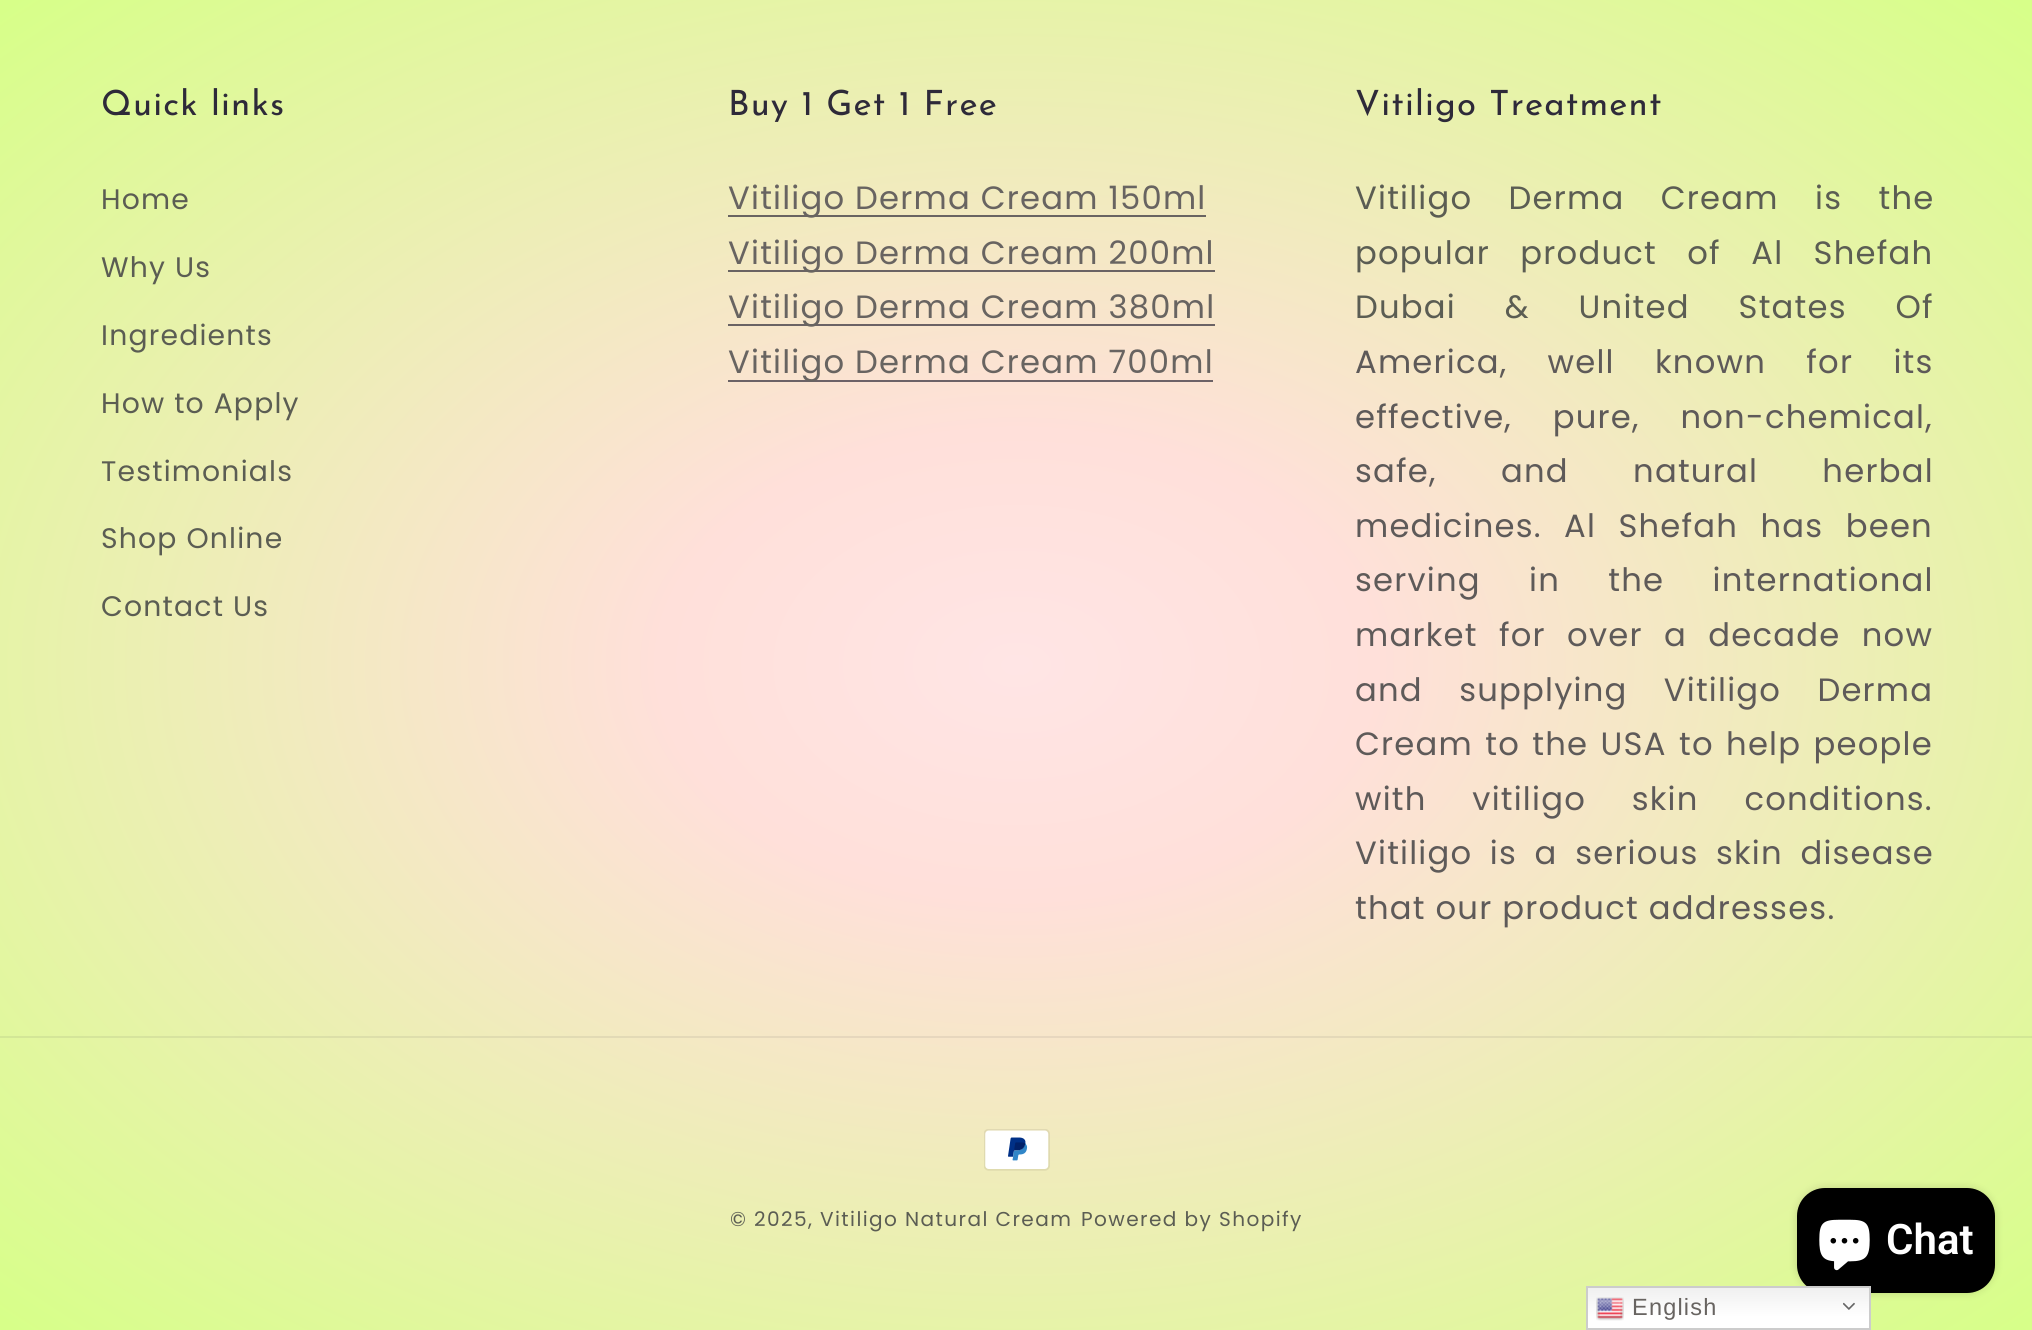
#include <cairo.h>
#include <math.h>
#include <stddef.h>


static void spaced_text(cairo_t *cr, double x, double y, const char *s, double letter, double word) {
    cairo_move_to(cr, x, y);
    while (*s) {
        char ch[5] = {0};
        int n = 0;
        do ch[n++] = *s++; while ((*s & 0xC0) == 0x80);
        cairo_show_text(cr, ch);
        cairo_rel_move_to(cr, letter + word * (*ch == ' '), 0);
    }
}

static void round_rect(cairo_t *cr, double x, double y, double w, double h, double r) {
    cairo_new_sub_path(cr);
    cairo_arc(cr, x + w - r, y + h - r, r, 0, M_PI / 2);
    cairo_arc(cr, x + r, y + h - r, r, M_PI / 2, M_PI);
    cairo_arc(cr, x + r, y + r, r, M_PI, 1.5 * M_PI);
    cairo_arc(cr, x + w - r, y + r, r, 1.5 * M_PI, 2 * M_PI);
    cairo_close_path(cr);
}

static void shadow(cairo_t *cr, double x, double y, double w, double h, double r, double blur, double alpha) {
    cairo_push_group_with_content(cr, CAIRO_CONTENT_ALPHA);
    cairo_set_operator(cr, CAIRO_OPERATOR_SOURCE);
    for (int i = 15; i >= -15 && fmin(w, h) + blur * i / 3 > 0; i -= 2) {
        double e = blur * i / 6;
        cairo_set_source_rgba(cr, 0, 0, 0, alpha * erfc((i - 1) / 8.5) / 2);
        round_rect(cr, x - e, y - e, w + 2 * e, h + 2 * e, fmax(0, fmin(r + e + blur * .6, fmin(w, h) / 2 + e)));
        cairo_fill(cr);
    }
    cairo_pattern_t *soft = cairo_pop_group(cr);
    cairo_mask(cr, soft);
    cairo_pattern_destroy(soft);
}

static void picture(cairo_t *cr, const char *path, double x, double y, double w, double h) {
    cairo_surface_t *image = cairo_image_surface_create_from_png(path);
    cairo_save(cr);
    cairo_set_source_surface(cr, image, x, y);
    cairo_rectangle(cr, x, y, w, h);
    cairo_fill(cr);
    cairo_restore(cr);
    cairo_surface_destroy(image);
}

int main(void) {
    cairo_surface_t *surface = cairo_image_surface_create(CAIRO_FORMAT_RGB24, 2032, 1330);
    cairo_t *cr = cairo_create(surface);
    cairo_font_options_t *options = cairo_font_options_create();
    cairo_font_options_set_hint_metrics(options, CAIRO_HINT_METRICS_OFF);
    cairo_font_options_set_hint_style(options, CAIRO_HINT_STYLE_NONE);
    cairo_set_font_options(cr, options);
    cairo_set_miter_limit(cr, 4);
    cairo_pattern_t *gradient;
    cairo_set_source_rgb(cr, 1, 1, 1);
    cairo_paint(cr);
    gradient = cairo_pattern_create_radial(0, 0, 0, 0, 0, 1);
    cairo_pattern_set_matrix(gradient, &(cairo_matrix_t){1.0 / 1438, 0, 0, 1.0 / 940, -1.0 * 1017 / 1438, -1.0 * 665 / 940});
    cairo_pattern_add_color_stop_rgba(gradient, 0, 1, 0.898, 0.898, 1);
    cairo_pattern_add_color_stop_rgba(gradient, 0.25, 1, 0.878, 0.855, 1);
    cairo_pattern_add_color_stop_rgba(gradient, 1, 0.843, 1, 0.537, 1);
    cairo_set_source(cr, gradient);
    cairo_pattern_destroy(gradient);
    cairo_rectangle(cr, 0, 0, 2032, 1330);
    cairo_fill(cr);
    gradient = cairo_pattern_create_radial(0, 0, 0, 0, 0, 1);
    cairo_pattern_set_matrix(gradient, &(cairo_matrix_t){1.0 / 1438, 0, 0, 1.0 / 940, -1.0 * 1017 / 1438, -1.0 * 665 / 940});
    cairo_pattern_add_color_stop_rgba(gradient, 0, 0.427, 0.384, 0.427, 1);
    cairo_pattern_add_color_stop_rgba(gradient, 0.25, 0.427, 0.38, 0.412, 1);
    cairo_pattern_add_color_stop_rgba(gradient, 1, 0.38, 0.416, 0.318, 1);
    cairo_set_source(cr, gradient);
    cairo_pattern_destroy(gradient);
    cairo_rectangle(cr, 728, 380, 485, 2);
    cairo_fill(cr);
    cairo_rectangle(cr, 728, 324, 487, 2);
    cairo_fill(cr);
    cairo_rectangle(cr, 728, 270, 487, 2);
    cairo_fill(cr);
    cairo_rectangle(cr, 728, 215, 478, 2);
    cairo_fill(cr);
    gradient = cairo_pattern_create_radial(0, 0, 0, 0, 0, 1);
    cairo_pattern_set_matrix(gradient, &(cairo_matrix_t){1.0 / 1438, 0, 0, 1.0 / 940, -1.0 * 1017 / 1438, -1.0 * 665 / 940});
    cairo_pattern_add_color_stop_rgba(gradient, 0, 0.933, 0.839, 0.843, 1);
    cairo_pattern_add_color_stop_rgba(gradient, 0.25, 0.933, 0.82, 0.804, 1);
    cairo_pattern_add_color_stop_rgba(gradient, 1, 0.788, 0.933, 0.514, 1);
    cairo_set_source(cr, gradient);
    cairo_pattern_destroy(gradient);
    cairo_rectangle(cr, 0, 1036, 2032, 2);
    cairo_fill(cr);
    cairo_select_font_face(cr, "Josefin Sans", CAIRO_FONT_SLANT_NORMAL, CAIRO_FONT_WEIGHT_NORMAL);
    cairo_set_font_size(cr, 34.75);
    cairo_set_source_rgb(cr, 0.18, 0.165, 0.224);
    spaced_text(cr, 101, 115, "Quick links", 1.2, 0);
    cairo_select_font_face(cr, "Poppins", CAIRO_FONT_SLANT_NORMAL, CAIRO_FONT_WEIGHT_NORMAL);
    cairo_set_font_size(cr, 28.25);
    cairo_set_source_rgb(cr, 0.357, 0.365, 0.325);
    spaced_text(cr, 101, 209, "Home", 1.2, 0);
    spaced_text(cr, 101, 277, "Why Us", 1.2, 0);
    spaced_text(cr, 101, 345, "Ingredients", 1.2, 0);
    spaced_text(cr, 101, 413, "How to Apply", 1.2, 0);
    spaced_text(cr, 101, 481, "Testimonials", 1.2, 0);
    spaced_text(cr, 101, 548, "Shop Online", 1.2, 0);
    spaced_text(cr, 101, 616, "Contact Us", 1.2, 0);
    cairo_select_font_face(cr, "Josefin Sans", CAIRO_FONT_SLANT_NORMAL, CAIRO_FONT_WEIGHT_NORMAL);
    cairo_set_font_size(cr, 34.75);
    cairo_set_source_rgb(cr, 0.18, 0.165, 0.224);
    spaced_text(cr, 728, 115, "Buy 1 Get 1 Free", 1.2, 0);
    cairo_select_font_face(cr, "Poppins", CAIRO_FONT_SLANT_NORMAL, CAIRO_FONT_WEIGHT_NORMAL);
    cairo_set_font_size(cr, 32.25);
    cairo_set_source_rgb(cr, 0.408, 0.392, 0.38);
    spaced_text(cr, 728, 209, "Vitiligo Derma Cream 150ml", 1.2, 0);
    spaced_text(cr, 728, 264, "Vitiligo Derma Cream 200ml", 1.2, 0);
    spaced_text(cr, 728, 318, "Vitiligo Derma Cream 380ml", 1.2, 0);
    spaced_text(cr, 728, 373, "Vitiligo Derma Cream 700ml", 1.2, 0);
    cairo_select_font_face(cr, "Josefin Sans", CAIRO_FONT_SLANT_NORMAL, CAIRO_FONT_WEIGHT_NORMAL);
    cairo_set_font_size(cr, 34.75);
    cairo_set_source_rgb(cr, 0.18, 0.165, 0.224);
    spaced_text(cr, 1355, 115, "Vitiligo Treatment", 1.2, 0);
    cairo_select_font_face(cr, "Poppins", CAIRO_FONT_SLANT_NORMAL, CAIRO_FONT_WEIGHT_NORMAL);
    cairo_set_font_size(cr, 32.25);
    cairo_set_source_rgb(cr, 0.357, 0.365, 0.325);
    spaced_text(cr, 1355, 209, "Vitiligo Derma Cream is the", 1.2, 26.5);
    spaced_text(cr, 1355, 264, "popular product of Al Shefah", 1.2, 20.5);
    spaced_text(cr, 1355, 318, "Dubai & United States Of", 1.2, 39);
    cairo_set_source_rgb(cr, 0.369, 0.353, 0.349);
    spaced_text(cr, 1355, 373, "America, well known for its", 1.2, 30.5);
    spaced_text(cr, 1355, 428, "effective, pure, non-chemical,", 1.2, 31);
    spaced_text(cr, 1355, 482, "safe, and natural herbal", 1.2, 54.5);
    spaced_text(cr, 1355, 537, "medicines. Al Shefah has been", 1.2, 12.5);
    spaced_text(cr, 1355, 591, "serving in the international", 1.2, 38.5);
    spaced_text(cr, 1355, 646, "market for over a decade now", 1.2, 11.5);
    spaced_text(cr, 1355, 701, "and supplying Vitiligo Derma", 1.2, 26.5);
    spaced_text(cr, 1355, 755, "Cream to the USA to help people", 1.2, 2.5);
    spaced_text(cr, 1355, 810, "with vitiligo skin conditions.", 1.2, 36);
    spaced_text(cr, 1355, 864, "Vitiligo is a serious skin disease", 1.2, 7.75);
    spaced_text(cr, 1355, 919, "that our product addresses.", 1.2, 0);
    picture(cr, "img1.png", 984, 1129, 66, 42);
    cairo_set_font_size(cr, 20.1);
    cairo_set_source_rgb(cr, 0.357, 0.365, 0.325);
    spaced_text(cr, 730, 1226, "© 2025,", 1.4, 0);
    spaced_text(cr, 820, 1226, "Vitiligo Natural Cream", 1.4, 0);
    spaced_text(cr, 1081, 1226, "Powered by Shopify", 1.4, 0);
    cairo_set_source_rgb(cr, 0, 0, 0);
    shadow(cr, 1797, 1188, 198, 105, 28, 4.5, 0.15);
    cairo_set_source_rgb(cr, 0, 0, 0);
    round_rect(cr, 1797, 1188, 198, 105, 28);
    cairo_fill(cr);
    picture(cr, "img2.png", 1819, 1219, 51, 52);
    cairo_select_font_face(cr, "Roboto SemiBold", CAIRO_FONT_SLANT_NORMAL, CAIRO_FONT_WEIGHT_NORMAL);
    cairo_set_font_size(cr, 42);
    cairo_set_source_rgb(cr, 1, 1, 1);
    cairo_move_to(cr, 1886, 1254);
    cairo_show_text(cr, "Chat");
    gradient = cairo_pattern_create_linear(1728, 1286, 1728, 1330);
    cairo_pattern_add_color_stop_rgba(gradient, 0, 0.937, 0.937, 0.937, 1);
    cairo_pattern_add_color_stop_rgba(gradient, 0.7, 1, 1, 1, 1);
    cairo_set_source(cr, gradient);
    cairo_pattern_destroy(gradient);
    cairo_rectangle(cr, 1588, 1288, 281, 40);
    cairo_fill(cr);
    cairo_rectangle(cr, 1587, 1287, 283, 42);
    cairo_set_source_rgb(cr, 0.8, 0.8, 0.8);
    cairo_stroke(cr);
    picture(cr, "img3.png", 1596, 1297, 28, 24);
    cairo_select_font_face(cr, "Liberation Sans", CAIRO_FONT_SLANT_NORMAL, CAIRO_FONT_WEIGHT_NORMAL);
    cairo_set_font_size(cr, 23.5);
    cairo_set_source_rgb(cr, 0.408, 0.392, 0.38);
    spaced_text(cr, 1632, 1315, "English", 1.2, 0);
    picture(cr, "img4.png", 1843, 1302, 12, 8);
    cairo_surface_write_to_png(surface, "page.png");
    cairo_font_options_destroy(options);
    cairo_destroy(cr);
    cairo_surface_destroy(surface);
    return 0;
}
